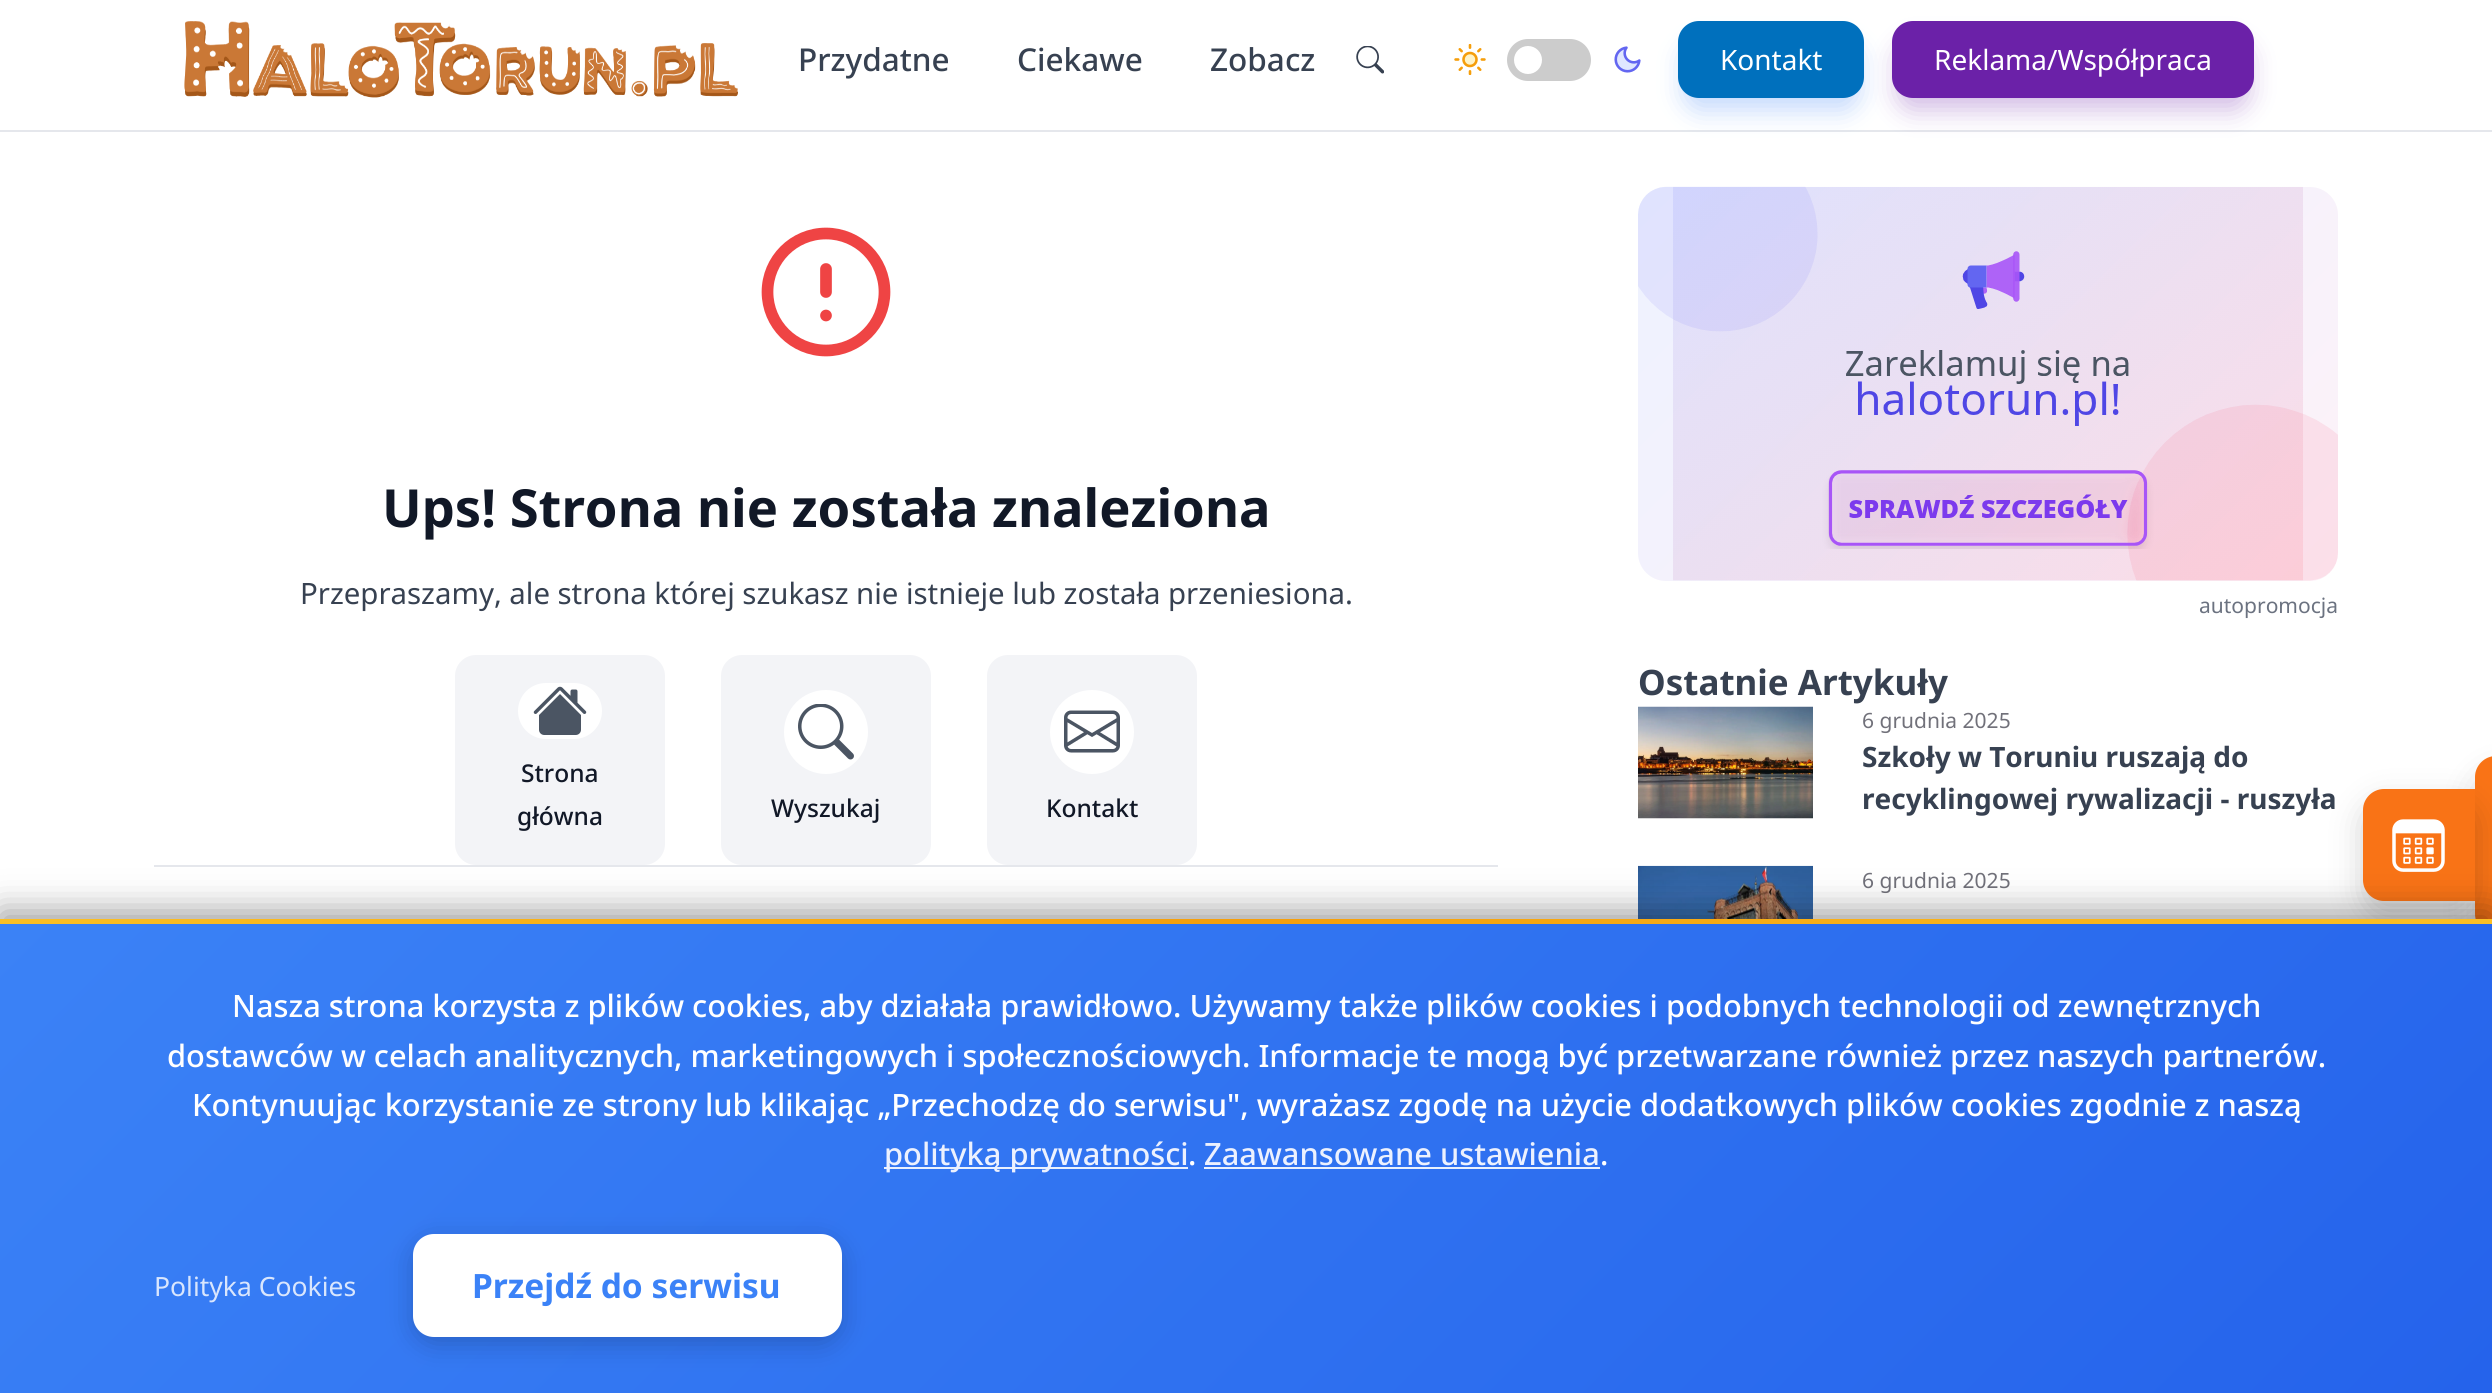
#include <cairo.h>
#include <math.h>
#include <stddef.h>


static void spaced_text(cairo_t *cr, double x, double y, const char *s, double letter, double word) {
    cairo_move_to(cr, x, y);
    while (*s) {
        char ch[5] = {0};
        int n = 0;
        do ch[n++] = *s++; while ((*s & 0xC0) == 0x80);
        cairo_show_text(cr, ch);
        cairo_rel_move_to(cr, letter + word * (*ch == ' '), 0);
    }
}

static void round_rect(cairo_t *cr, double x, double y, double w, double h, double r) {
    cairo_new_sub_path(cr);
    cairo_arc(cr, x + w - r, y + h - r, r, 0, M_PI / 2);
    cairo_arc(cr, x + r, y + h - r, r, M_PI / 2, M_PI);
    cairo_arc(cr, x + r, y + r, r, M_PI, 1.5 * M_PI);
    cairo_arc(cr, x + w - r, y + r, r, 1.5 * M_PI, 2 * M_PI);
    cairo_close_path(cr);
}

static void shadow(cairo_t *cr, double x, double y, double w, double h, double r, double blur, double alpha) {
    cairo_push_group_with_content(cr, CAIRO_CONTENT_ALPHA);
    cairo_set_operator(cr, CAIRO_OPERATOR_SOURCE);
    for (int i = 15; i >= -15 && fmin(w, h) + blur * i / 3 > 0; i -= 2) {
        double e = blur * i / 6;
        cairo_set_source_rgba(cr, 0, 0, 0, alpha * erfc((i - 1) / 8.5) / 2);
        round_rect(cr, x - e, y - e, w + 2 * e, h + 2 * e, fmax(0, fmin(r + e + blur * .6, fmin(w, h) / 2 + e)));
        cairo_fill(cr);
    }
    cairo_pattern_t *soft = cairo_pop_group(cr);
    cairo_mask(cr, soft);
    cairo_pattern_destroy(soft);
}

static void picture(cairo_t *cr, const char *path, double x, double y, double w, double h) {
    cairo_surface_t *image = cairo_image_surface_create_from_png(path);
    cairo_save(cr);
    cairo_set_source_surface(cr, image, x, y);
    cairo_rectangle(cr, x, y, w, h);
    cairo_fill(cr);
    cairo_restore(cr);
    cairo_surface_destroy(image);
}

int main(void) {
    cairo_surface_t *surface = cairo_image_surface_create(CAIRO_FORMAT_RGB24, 2492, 1393);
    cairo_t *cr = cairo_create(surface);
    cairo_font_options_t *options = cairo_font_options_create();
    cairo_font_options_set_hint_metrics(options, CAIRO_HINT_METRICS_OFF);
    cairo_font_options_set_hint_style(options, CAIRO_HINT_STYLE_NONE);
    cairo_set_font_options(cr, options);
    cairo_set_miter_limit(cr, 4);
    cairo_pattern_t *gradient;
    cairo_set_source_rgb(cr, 1, 1, 1);
    cairo_paint(cr);
    cairo_set_source_rgb(cr, 0.898, 0.906, 0.922);
    cairo_rectangle(cr, 0, 130, 2492, 2);
    cairo_fill(cr);
    picture(cr, "img1.png", 184, 21, 554, 77);
    cairo_select_font_face(cr, "Noto Sans Medium", CAIRO_FONT_SLANT_NORMAL, CAIRO_FONT_WEIGHT_NORMAL);
    cairo_set_font_size(cr, 31.5);
    cairo_set_source_rgb(cr, 0.216, 0.255, 0.318);
    cairo_move_to(cr, 798, 71);
    cairo_show_text(cr, "Przydatne");
    cairo_move_to(cr, 1017, 71);
    cairo_show_text(cr, "Ciekawe");
    cairo_move_to(cr, 1210, 71);
    cairo_show_text(cr, "Zobacz");
    picture(cr, "img2.png", 1356, 46, 28, 28);
    picture(cr, "img3.png", 1454, 44, 32, 31);
    cairo_set_source_rgb(cr, 0.8, 0.8, 0.8);
    round_rect(cr, 1507, 39, 84, 42, 21);
    cairo_fill(cr);
    cairo_set_source_rgb(cr, 1, 1, 1);
    cairo_arc(cr, 1528, 60, 14, 0, 2 * M_PI);
    cairo_fill(cr);
    picture(cr, "img4.png", 1614, 46, 27, 27);
    cairo_set_source_rgb(cr, 0.231, 0.51, 0.965);
    shadow(cr, 1684, 44, 175, 66, 16, 13, 0.3);
    cairo_set_source_rgb(cr, 0, 0.439, 0.741);
    round_rect(cr, 1678, 21, 186, 77, 21);
    cairo_fill(cr);
    cairo_select_font_face(cr, "Noto Sans", CAIRO_FONT_SLANT_NORMAL, CAIRO_FONT_WEIGHT_NORMAL);
    cairo_set_font_size(cr, 28);
    cairo_set_source_rgb(cr, 1, 1, 1);
    cairo_move_to(cr, 1720, 70);
    cairo_show_text(cr, "Kontakt");
    cairo_set_source_rgb(cr, 0.42, 0.129, 0.659);
    shadow(cr, 1897, 44, 352, 66, 16, 13, 0.3);
    cairo_set_source_rgb(cr, 0.42, 0.129, 0.659);
    round_rect(cr, 1892, 21, 362, 77, 21);
    cairo_fill(cr);
    cairo_set_source_rgb(cr, 1, 1, 1);
    cairo_move_to(cr, 1934, 70);
    cairo_show_text(cr, "Reklama/Współpraca");
    cairo_new_path(cr);
    cairo_arc(cr, 826, 292, 58.5, 0, 2 * M_PI);
    cairo_set_source_rgb(cr, 0.937, 0.267, 0.267);
    cairo_set_line_width(cr, 11.7);
    cairo_stroke(cr);
    cairo_new_path(cr);
    cairo_move_to(cr, 826, 269);
    cairo_line_to(cr, 826, 292);
    cairo_move_to(cr, 826, 315.5);
    cairo_line_to(cr, 826, 315.5);
    cairo_set_line_cap(cr, CAIRO_LINE_CAP_ROUND);
    cairo_set_line_join(cr, CAIRO_LINE_JOIN_ROUND);
    cairo_stroke(cr);
    cairo_select_font_face(cr, "Noto Sans", CAIRO_FONT_SLANT_NORMAL, CAIRO_FONT_WEIGHT_BOLD);
    cairo_set_font_size(cr, 52.5);
    cairo_set_source_rgb(cr, 0.067, 0.094, 0.153);
    cairo_move_to(cr, 382, 527);
    cairo_show_text(cr, "Ups! Strona nie została znaleziona");
    cairo_select_font_face(cr, "Noto Sans", CAIRO_FONT_SLANT_NORMAL, CAIRO_FONT_WEIGHT_NORMAL);
    cairo_set_font_size(cr, 29.4);
    cairo_set_source_rgb(cr, 0.216, 0.255, 0.318);
    spaced_text(cr, 300, 604, "Przepraszamy, ale strona której szukasz nie istnieje lub została przeniesiona.", 0, -0.1);
    cairo_set_source_rgb(cr, 0.953, 0.957, 0.965);
    round_rect(cr, 455, 655, 210, 210, 21);
    cairo_fill(cr);
    cairo_set_source_rgb(cr, 1, 1, 1);
    round_rect(cr, 518, 683, 84, 56, 28);
    cairo_fill(cr);
    picture(cr, "img5.png", 533, 686, 54, 49);
    cairo_select_font_face(cr, "Noto Sans Medium", CAIRO_FONT_SLANT_NORMAL, CAIRO_FONT_WEIGHT_NORMAL);
    cairo_set_font_size(cr, 24.5);
    cairo_set_source_rgb(cr, 0.067, 0.094, 0.153);
    cairo_move_to(cr, 521, 782);
    cairo_show_text(cr, "Strona");
    cairo_move_to(cr, 517, 825);
    cairo_show_text(cr, "główna");
    cairo_set_source_rgb(cr, 0.953, 0.957, 0.965);
    round_rect(cr, 721, 655, 210, 210, 21);
    cairo_fill(cr);
    cairo_set_source_rgb(cr, 1, 1, 1);
    cairo_arc(cr, 826, 732, 42, 0, 2 * M_PI);
    cairo_fill(cr);
    picture(cr, "img6.png", 798, 704, 56, 56);
    cairo_set_source_rgb(cr, 0.067, 0.094, 0.153);
    cairo_move_to(cr, 771, 817);
    cairo_show_text(cr, "Wyszukaj");
    cairo_set_source_rgb(cr, 0.953, 0.957, 0.965);
    round_rect(cr, 987, 655, 210, 210, 21);
    cairo_fill(cr);
    cairo_set_source_rgb(cr, 1, 1, 1);
    cairo_arc(cr, 1092, 732, 42, 0, 2 * M_PI);
    cairo_fill(cr);
    picture(cr, "img7.png", 1064, 710, 56, 43);
    cairo_set_source_rgb(cr, 0.067, 0.094, 0.153);
    cairo_move_to(cr, 1046, 817);
    cairo_show_text(cr, "Kontakt");
    cairo_set_source_rgb(cr, 0.898, 0.906, 0.922);
    cairo_rectangle(cr, 154, 865, 1344, 2);
    cairo_fill(cr);
    gradient = cairo_pattern_create_linear(1715, 111, 2261, 658);
    cairo_pattern_add_color_stop_rgba(gradient, 0, 0.933, 0.949, 1, 1);
    cairo_pattern_add_color_stop_rgba(gradient, 1, 0.992, 0.949, 0.973, 1);
    cairo_set_source(cr, gradient);
    cairo_pattern_destroy(gradient);
    round_rect(cr, 1638, 187, 700, 394, 28);
    cairo_fill(cr);
    picture(cr, "img8.png", 1638, 186, 700, 395);
    cairo_select_font_face(cr, "Noto Sans", CAIRO_FONT_SLANT_NORMAL, CAIRO_FONT_WEIGHT_NORMAL);
    cairo_set_font_size(cr, 21);
    cairo_set_source_rgb(cr, 0.42, 0.447, 0.502);
    cairo_move_to(cr, 2199, 613);
    cairo_show_text(cr, "autopromocja");
    cairo_select_font_face(cr, "Noto Sans", CAIRO_FONT_SLANT_NORMAL, CAIRO_FONT_WEIGHT_BOLD);
    cairo_set_font_size(cr, 35);
    cairo_set_source_rgb(cr, 0.216, 0.255, 0.318);
    cairo_move_to(cr, 1638, 695);
    cairo_show_text(cr, "Ostatnie Artykuły");
    picture(cr, "img9.png", 1638, 706, 175, 113);
    cairo_select_font_face(cr, "Noto Sans", CAIRO_FONT_SLANT_NORMAL, CAIRO_FONT_WEIGHT_NORMAL);
    cairo_set_font_size(cr, 21);
    cairo_set_source_rgb(cr, 0.443, 0.443, 0.478);
    cairo_move_to(cr, 1862, 728);
    cairo_show_text(cr, "6 grudnia 2025");
    cairo_select_font_face(cr, "Noto Sans", CAIRO_FONT_SLANT_NORMAL, CAIRO_FONT_WEIGHT_BOLD);
    cairo_set_font_size(cr, 28);
    cairo_set_source_rgb(cr, 0.216, 0.255, 0.318);
    cairo_move_to(cr, 1862, 767);
    cairo_show_text(cr, "Szkoły w Toruniu ruszają do");
    cairo_move_to(cr, 1862, 809);
    cairo_show_text(cr, "recyklingowej rywalizacji - ruszyła");
    picture(cr, "img10.png", 1638, 865, 175, 54);
    cairo_select_font_face(cr, "Noto Sans", CAIRO_FONT_SLANT_NORMAL, CAIRO_FONT_WEIGHT_NORMAL);
    cairo_set_font_size(cr, 21);
    cairo_set_source_rgb(cr, 0.443, 0.443, 0.478);
    cairo_move_to(cr, 1862, 888);
    cairo_show_text(cr, "6 grudnia 2025");
    cairo_set_source_rgb(cr, 0, 0, 0);
    shadow(cr, 2475, 774, 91, 178, 21, 17.5, 0.15);
    cairo_set_source_rgb(cr, 0.976, 0.451, 0.086);
    cairo_new_path(cr);
    cairo_move_to(cr, 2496, 756);
    cairo_line_to(cr, 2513, 756);
    cairo_line_to(cr, 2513, 935);
    cairo_line_to(cr, 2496, 935);
    cairo_curve_to(cr, 2484.5, 935, 2475, 925.5, 2475, 914);
    cairo_line_to(cr, 2475, 777);
    cairo_curve_to(cr, 2475, 765.5, 2484.5, 756, 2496, 756);
    cairo_close_path(cr);
    cairo_fill(cr);
    cairo_set_source_rgb(cr, 0, 0, 0);
    shadow(cr, 2363, 803, 112, 112, 21, 16, 0.18);
    cairo_set_source_rgb(cr, 0.976, 0.451, 0.086);
    cairo_new_path(cr);
    cairo_move_to(cr, 2384, 789);
    cairo_line_to(cr, 2475, 789);
    cairo_line_to(cr, 2475, 901);
    cairo_line_to(cr, 2384, 901);
    cairo_curve_to(cr, 2372.5, 901, 2363, 891.5, 2363, 880);
    cairo_line_to(cr, 2363, 810);
    cairo_curve_to(cr, 2363, 798.5, 2372.5, 789, 2384, 789);
    cairo_close_path(cr);
    cairo_fill(cr);
    picture(cr, "img11.png", 2392, 819, 53, 53);
    cairo_set_source_rgb(cr, 0, 0, 0);
    shadow(cr, 0, 912, 2492, 474, 0, 17.5, 0.4);
    gradient = cairo_pattern_create_linear(506, 418, 1986, 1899);
    cairo_pattern_add_color_stop_rgba(gradient, 0, 0.231, 0.51, 0.965, 1);
    cairo_pattern_add_color_stop_rgba(gradient, 1, 0.145, 0.388, 0.922, 1);
    cairo_set_source(cr, gradient);
    cairo_pattern_destroy(gradient);
    cairo_rectangle(cr, 0, 924, 2492, 469);
    cairo_fill(cr);
    gradient = cairo_pattern_create_linear(506, 418, 1986, 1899);
    cairo_pattern_add_color_stop_rgba(gradient, 0, 0.922, 0.953, 0.996, 1);
    cairo_pattern_add_color_stop_rgba(gradient, 1, 0.914, 0.937, 0.992, 1);
    cairo_set_source(cr, gradient);
    cairo_pattern_destroy(gradient);
    cairo_rectangle(cr, 1204, 1167, 396, 2);
    cairo_fill(cr);
    cairo_rectangle(cr, 884, 1167, 304, 2);
    cairo_fill(cr);
    gradient = cairo_pattern_create_linear(0, 921, 2492, 921);
    cairo_pattern_add_color_stop_rgba(gradient, 0, 0.984, 0.749, 0.141, 1);
    cairo_pattern_add_color_stop_rgba(gradient, 0.5, 0.961, 0.62, 0.043, 1);
    cairo_pattern_add_color_stop_rgba(gradient, 1, 0.984, 0.749, 0.141, 1);
    cairo_set_source(cr, gradient);
    cairo_pattern_destroy(gradient);
    cairo_rectangle(cr, 0, 919, 2492, 5);
    cairo_fill(cr);
    cairo_select_font_face(cr, "Noto Sans Medium", CAIRO_FONT_SLANT_NORMAL, CAIRO_FONT_WEIGHT_NORMAL);
    cairo_set_font_size(cr, 30.8);
    cairo_set_source_rgb(cr, 1, 1, 1);
    cairo_move_to(cr, 232, 1017);
    cairo_show_text(cr, "Nasza strona korzysta z plików cookies, aby działała prawidłowo. Używamy także plików cookies i podobnych technologii od zewnętrznych");
    cairo_move_to(cr, 167, 1067);
    cairo_show_text(cr, "dostawców w celach analitycznych, marketingowych i społecznościowych. Informacje te mogą być przetwarzane również przez naszych partnerów.");
    cairo_move_to(cr, 192, 1116);
    cairo_show_text(cr, "Kontynuując korzystanie ze strony lub klikając „Przechodzę do serwisu\", wyrażasz zgodę na użycie dodatkowych plików cookies zgodnie z naszą");
    cairo_set_source_rgb(cr, 0.922, 0.945, 0.996);
    cairo_move_to(cr, 884, 1165);
    cairo_show_text(cr, "polityką prywatności");
    cairo_set_source_rgb(cr, 1, 1, 1);
    cairo_move_to(cr, 1188, 1165);
    cairo_show_text(cr, ".");
    cairo_set_source_rgb(cr, 0.922, 0.945, 0.996);
    cairo_move_to(cr, 1204, 1165);
    cairo_show_text(cr, "Zaawansowane ustawienia");
    cairo_set_source_rgb(cr, 1, 1, 1);
    cairo_move_to(cr, 1600, 1165);
    cairo_show_text(cr, ".");
    cairo_select_font_face(cr, "Noto Sans", CAIRO_FONT_SLANT_NORMAL, CAIRO_FONT_WEIGHT_NORMAL);
    cairo_set_font_size(cr, 26.5);
    cairo_set_source_rgb(cr, 0.851, 0.902, 0.992);
    cairo_move_to(cr, 154, 1296);
    cairo_show_text(cr, "Polityka Cookies");
    cairo_set_source_rgb(cr, 0, 0, 0);
    shadow(cr, 413, 1241, 429, 103, 21, 13, 0.2);
    cairo_set_source_rgb(cr, 1, 1, 1);
    round_rect(cr, 415, 1236, 425, 99, 19);
    cairo_fill_preserve(cr);
    cairo_set_line_width(cr, 4);
    cairo_set_line_cap(cr, CAIRO_LINE_CAP_BUTT);
    cairo_set_line_join(cr, CAIRO_LINE_JOIN_MITER);
    cairo_stroke(cr);
    cairo_select_font_face(cr, "Noto Sans", CAIRO_FONT_SLANT_NORMAL, CAIRO_FONT_WEIGHT_BOLD);
    cairo_set_font_size(cr, 33.5);
    cairo_set_source_rgb(cr, 0.231, 0.51, 0.965);
    cairo_move_to(cr, 472, 1298);
    cairo_show_text(cr, "Przejdź do serwisu");
    cairo_surface_write_to_png(surface, "page.png");
    cairo_font_options_destroy(options);
    cairo_destroy(cr);
    cairo_surface_destroy(surface);
    return 0;
}
